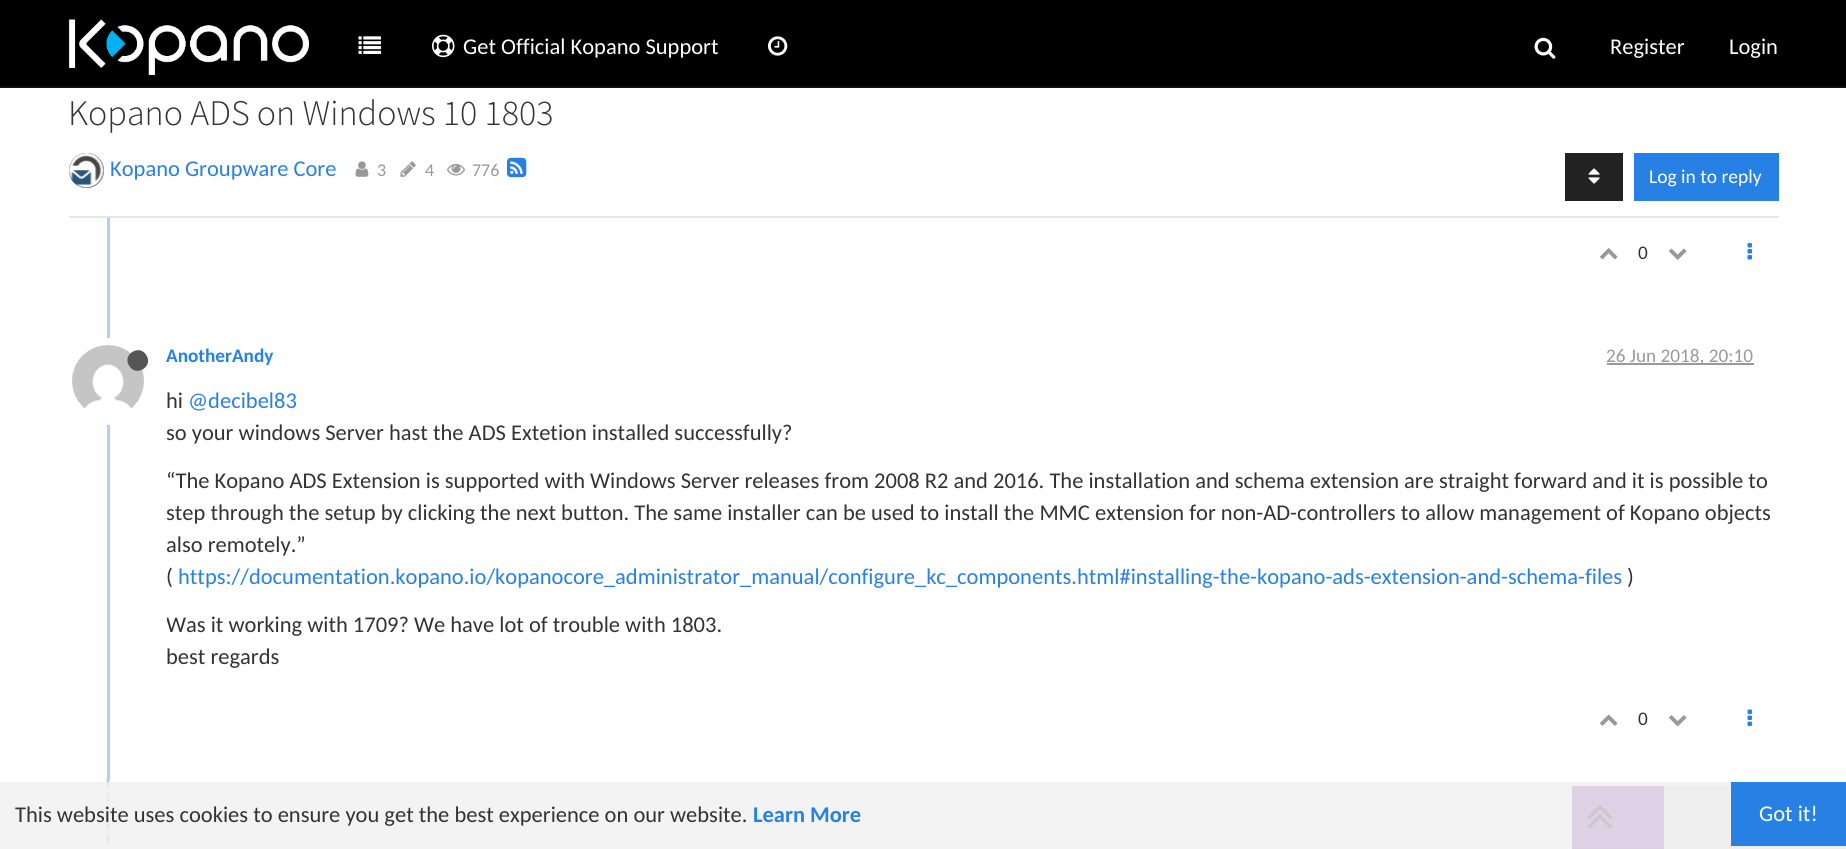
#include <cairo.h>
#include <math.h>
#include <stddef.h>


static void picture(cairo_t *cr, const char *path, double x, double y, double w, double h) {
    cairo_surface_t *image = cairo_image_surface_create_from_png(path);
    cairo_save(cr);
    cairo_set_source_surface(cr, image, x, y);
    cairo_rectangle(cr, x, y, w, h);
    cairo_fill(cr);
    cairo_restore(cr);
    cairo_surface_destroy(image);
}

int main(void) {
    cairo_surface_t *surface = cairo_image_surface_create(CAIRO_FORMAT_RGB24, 1846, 849);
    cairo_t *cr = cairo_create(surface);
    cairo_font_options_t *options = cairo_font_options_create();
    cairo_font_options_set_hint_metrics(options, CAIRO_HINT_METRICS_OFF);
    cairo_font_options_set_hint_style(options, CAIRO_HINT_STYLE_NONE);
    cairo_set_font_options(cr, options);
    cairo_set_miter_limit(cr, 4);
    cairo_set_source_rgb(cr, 1, 1, 1);
    cairo_paint(cr);
    cairo_set_source_rgb(cr, 0, 0, 0);
    cairo_rectangle(cr, 0, 0, 1846, 86);
    cairo_fill(cr);
    cairo_set_source_rgb(cr, 0.071, 0.071, 0.071);
    cairo_rectangle(cr, 0, 86, 1846, 2);
    cairo_fill(cr);
    picture(cr, "img1.png", 68, 19, 241, 56);
    picture(cr, "img2.png", 358, 36, 23, 18);
    picture(cr, "img3.png", 432, 34, 23, 24);
    cairo_select_font_face(cr, "Carlito", CAIRO_FONT_SLANT_NORMAL, CAIRO_FONT_WEIGHT_NORMAL);
    cairo_set_font_size(cr, 22.5);
    cairo_set_source_rgb(cr, 1, 1, 1);
    cairo_move_to(cr, 463, 54);
    cairo_show_text(cr, "Get Official Kopano Support");
    picture(cr, "img4.png", 768, 36, 20, 20);
    picture(cr, "img5.png", 1534, 37, 22, 22);
    cairo_move_to(cr, 1610, 54);
    cairo_show_text(cr, "Register");
    cairo_move_to(cr, 1729, 54);
    cairo_show_text(cr, "Login");
    cairo_select_font_face(cr, "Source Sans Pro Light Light", CAIRO_FONT_SLANT_NORMAL, CAIRO_FONT_WEIGHT_NORMAL);
    cairo_set_font_size(cr, 36);
    cairo_set_source_rgb(cr, 0.2, 0.2, 0.2);
    cairo_move_to(cr, 68, 125);
    cairo_show_text(cr, "Kopano ADS on Windows 10 1803");
    cairo_set_source_rgb(cr, 0.902, 0.902, 0.902);
    cairo_rectangle(cr, 69, 216, 1710, 2);
    cairo_fill(cr);
    cairo_set_source_rgb(cr, 0.165, 0.329, 0.482);
    cairo_arc(cr, 86.5, 170.5, 17.5, 0, 2 * M_PI);
    cairo_fill(cr);
    picture(cr, "img6.png", 69, 153, 35, 35);
    cairo_select_font_face(cr, "Carlito", CAIRO_FONT_SLANT_NORMAL, CAIRO_FONT_WEIGHT_NORMAL);
    cairo_set_font_size(cr, 22.5);
    cairo_set_source_rgb(cr, 0.153, 0.502, 0.89);
    cairo_move_to(cr, 110, 176);
    cairo_show_text(cr, "Kopano Groupware Core");
    picture(cr, "img7.png", 355, 161, 14, 16);
    cairo_set_font_size(cr, 18);
    cairo_set_source_rgb(cr, 0.6, 0.6, 0.6);
    cairo_move_to(cr, 377, 176);
    cairo_show_text(cr, "3");
    picture(cr, "img8.png", 400, 161, 16, 16);
    cairo_move_to(cr, 425, 176);
    cairo_show_text(cr, "4");
    picture(cr, "img9.png", 447, 164, 18, 12);
    cairo_move_to(cr, 472, 176);
    cairo_show_text(cr, "776");
    picture(cr, "img10.png", 507, 157, 20, 21);
    cairo_set_source_rgb(cr, 0.133, 0.133, 0.133);
    cairo_rectangle(cr, 1565, 153, 58, 48);
    cairo_fill(cr);
    picture(cr, "img11.png", 1588, 168, 12, 16);
    cairo_set_source_rgb(cr, 0.153, 0.502, 0.89);
    cairo_rectangle(cr, 1634, 153, 145, 48);
    cairo_fill(cr);
    cairo_set_font_size(cr, 19.5);
    cairo_set_source_rgb(cr, 1, 1, 1);
    cairo_move_to(cr, 1649, 183);
    cairo_show_text(cr, "Log in to reply");
    cairo_set_source_rgb(cr, 0.682, 0.816, 0.961);
    cairo_rectangle(cr, 107, 218, 3, 561);
    cairo_fill(cr);
    picture(cr, "img12.png", 1600, 248, 18, 12);
    cairo_set_font_size(cr, 19.25);
    cairo_set_source_rgb(cr, 0.2, 0.2, 0.2);
    cairo_move_to(cr, 1638, 259);
    cairo_show_text(cr, "0");
    picture(cr, "img13.png", 1669, 248, 18, 12);
    picture(cr, "img14.png", 1747, 243, 5, 17);
    cairo_arc(cr, 108.5, 381.5, 39.5, 0, 2 * M_PI);
    cairo_set_source_rgb(cr, 1, 1, 1);
    cairo_set_line_width(cr, 8);
    cairo_stroke(cr);
    picture(cr, "img15.png", 72, 345, 72, 72);
    cairo_set_source_rgb(cr, 0.333, 0.333, 0.333);
    cairo_new_path(cr);
    cairo_move_to(cr, 146.5, 355.5);
    cairo_curve_to(cr, 153.5, 367, 135.5, 377.5, 129, 365.5);
    cairo_curve_to(cr, 122, 354, 140, 343.5, 146.5, 355.5);
    cairo_close_path(cr);
    cairo_fill(cr);
    cairo_select_font_face(cr, "Carlito", CAIRO_FONT_SLANT_NORMAL, CAIRO_FONT_WEIGHT_BOLD);
    cairo_set_source_rgb(cr, 0.153, 0.502, 0.89);
    cairo_move_to(cr, 166, 362);
    cairo_show_text(cr, "AnotherAndy");
    cairo_set_source_rgb(cr, 0.6, 0.6, 0.6);
    cairo_rectangle(cr, 1607, 363, 147, 2);
    cairo_fill(cr);
    cairo_select_font_face(cr, "Carlito", CAIRO_FONT_SLANT_NORMAL, CAIRO_FONT_WEIGHT_NORMAL);
    cairo_move_to(cr, 1606, 362);
    cairo_show_text(cr, "26 Jun 2018, 20:10");
    cairo_set_font_size(cr, 22.5);
    cairo_set_source_rgb(cr, 0.2, 0.2, 0.2);
    cairo_move_to(cr, 166, 408);
    cairo_show_text(cr, "hi");
    cairo_set_source_rgb(cr, 0.153, 0.502, 0.89);
    cairo_move_to(cr, 188, 408);
    cairo_show_text(cr, "@decibel83");
    cairo_save(cr);
    cairo_rectangle(cr, 167, 386, 1612, 306);
    cairo_clip(cr);
    cairo_set_source_rgb(cr, 0.2, 0.2, 0.2);
    cairo_move_to(cr, 166, 440);
    cairo_show_text(cr, "so your windows Server hast the ADS Extetion installed successfully?");
    cairo_restore(cr);
    cairo_set_source_rgb(cr, 0.2, 0.2, 0.2);
    cairo_move_to(cr, 166, 488);
    cairo_show_text(cr, "“The Kopano ADS Extension is supported with Windows Server releases from 2008 R2 and 2016. The installation and schema extension are straight forward and it is possible to");
    cairo_save(cr);
    cairo_rectangle(cr, 167, 386, 1612, 306);
    cairo_clip(cr);
    cairo_move_to(cr, 166, 520);
    cairo_show_text(cr, "step through the setup by clicking the next button. The same installer can be used to install the MMC extension for non-AD-controllers to allow management of Kopano objects");
    cairo_move_to(cr, 166, 552);
    cairo_show_text(cr, "also remotely.”");
    cairo_restore(cr);
    cairo_move_to(cr, 166, 584);
    cairo_show_text(cr, "(");
    cairo_set_source_rgb(cr, 0.153, 0.502, 0.89);
    cairo_move_to(cr, 178, 584);
    cairo_show_text(cr, "https://documentation.kopano.io/kopanocore_administrator_manual/configure_kc_components.html#installing-the-kopano-ads-extension-and-schema-files");
    cairo_set_source_rgb(cr, 0.2, 0.2, 0.2);
    cairo_move_to(cr, 1627, 584);
    cairo_show_text(cr, ")");
    cairo_save(cr);
    cairo_rectangle(cr, 167, 386, 1612, 306);
    cairo_clip(cr);
    cairo_move_to(cr, 166, 632);
    cairo_show_text(cr, "Was it working with 1709? We have lot of trouble with 1803.");
    cairo_restore(cr);
    cairo_move_to(cr, 166, 664);
    cairo_show_text(cr, "best regards");
    picture(cr, "img16.png", 1600, 714, 18, 12);
    cairo_set_font_size(cr, 19.25);
    cairo_move_to(cr, 1638, 725);
    cairo_show_text(cr, "0");
    picture(cr, "img17.png", 1669, 715, 18, 12);
    picture(cr, "img18.png", 1747, 709, 5, 17);
    cairo_new_path(cr);
    cairo_move_to(cr, 108, 778.5);
    cairo_line_to(cr, 108, 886.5);
    cairo_set_source_rgb(cr, 0.682, 0.816, 0.961);
    cairo_set_line_width(cr, 3);
    cairo_set_dash(cr, (double[]){9, 5.15}, 2, 0);
    cairo_stroke(cr);
    cairo_set_source_rgb(cr, 0.902, 0.902, 0.902);
    cairo_rectangle(cr, 1664, 786, 182, 63);
    cairo_fill(cr);
    cairo_set_source_rgb(cr, 0.6, 0.329, 0.733);
    cairo_rectangle(cr, 1572, 786, 92, 62);
    cairo_fill(cr);
    cairo_set_source_rgb(cr, 0.51, 0.278, 0.624);
    cairo_rectangle(cr, 1572, 848, 92, 1);
    cairo_fill(cr);
    picture(cr, "img19.png", 1587, 804, 26, 25);
    cairo_set_source_rgba(cr, 0.941, 0.941, 0.941, 0.8);
    cairo_rectangle(cr, 0, 782, 1846, 67);
    cairo_fill(cr);
    cairo_set_font_size(cr, 22.5);
    cairo_set_source_rgb(cr, 0.2, 0.2, 0.2);
    cairo_move_to(cr, 15, 822);
    cairo_show_text(cr, "This website uses cookies to ensure you get the best experience on our website.");
    cairo_select_font_face(cr, "Carlito", CAIRO_FONT_SLANT_NORMAL, CAIRO_FONT_WEIGHT_BOLD);
    cairo_set_source_rgb(cr, 0.153, 0.502, 0.89);
    cairo_move_to(cr, 753, 822);
    cairo_show_text(cr, "Learn More");
    cairo_rectangle(cr, 1731, 782, 115, 64);
    cairo_fill(cr);
    cairo_select_font_face(cr, "Carlito", CAIRO_FONT_SLANT_NORMAL, CAIRO_FONT_WEIGHT_NORMAL);
    cairo_set_source_rgb(cr, 1, 1, 1);
    cairo_move_to(cr, 1759, 821);
    cairo_show_text(cr, "Got it!");
    cairo_surface_write_to_png(surface, "page.png");
    cairo_font_options_destroy(options);
    cairo_destroy(cr);
    cairo_surface_destroy(surface);
    return 0;
}
